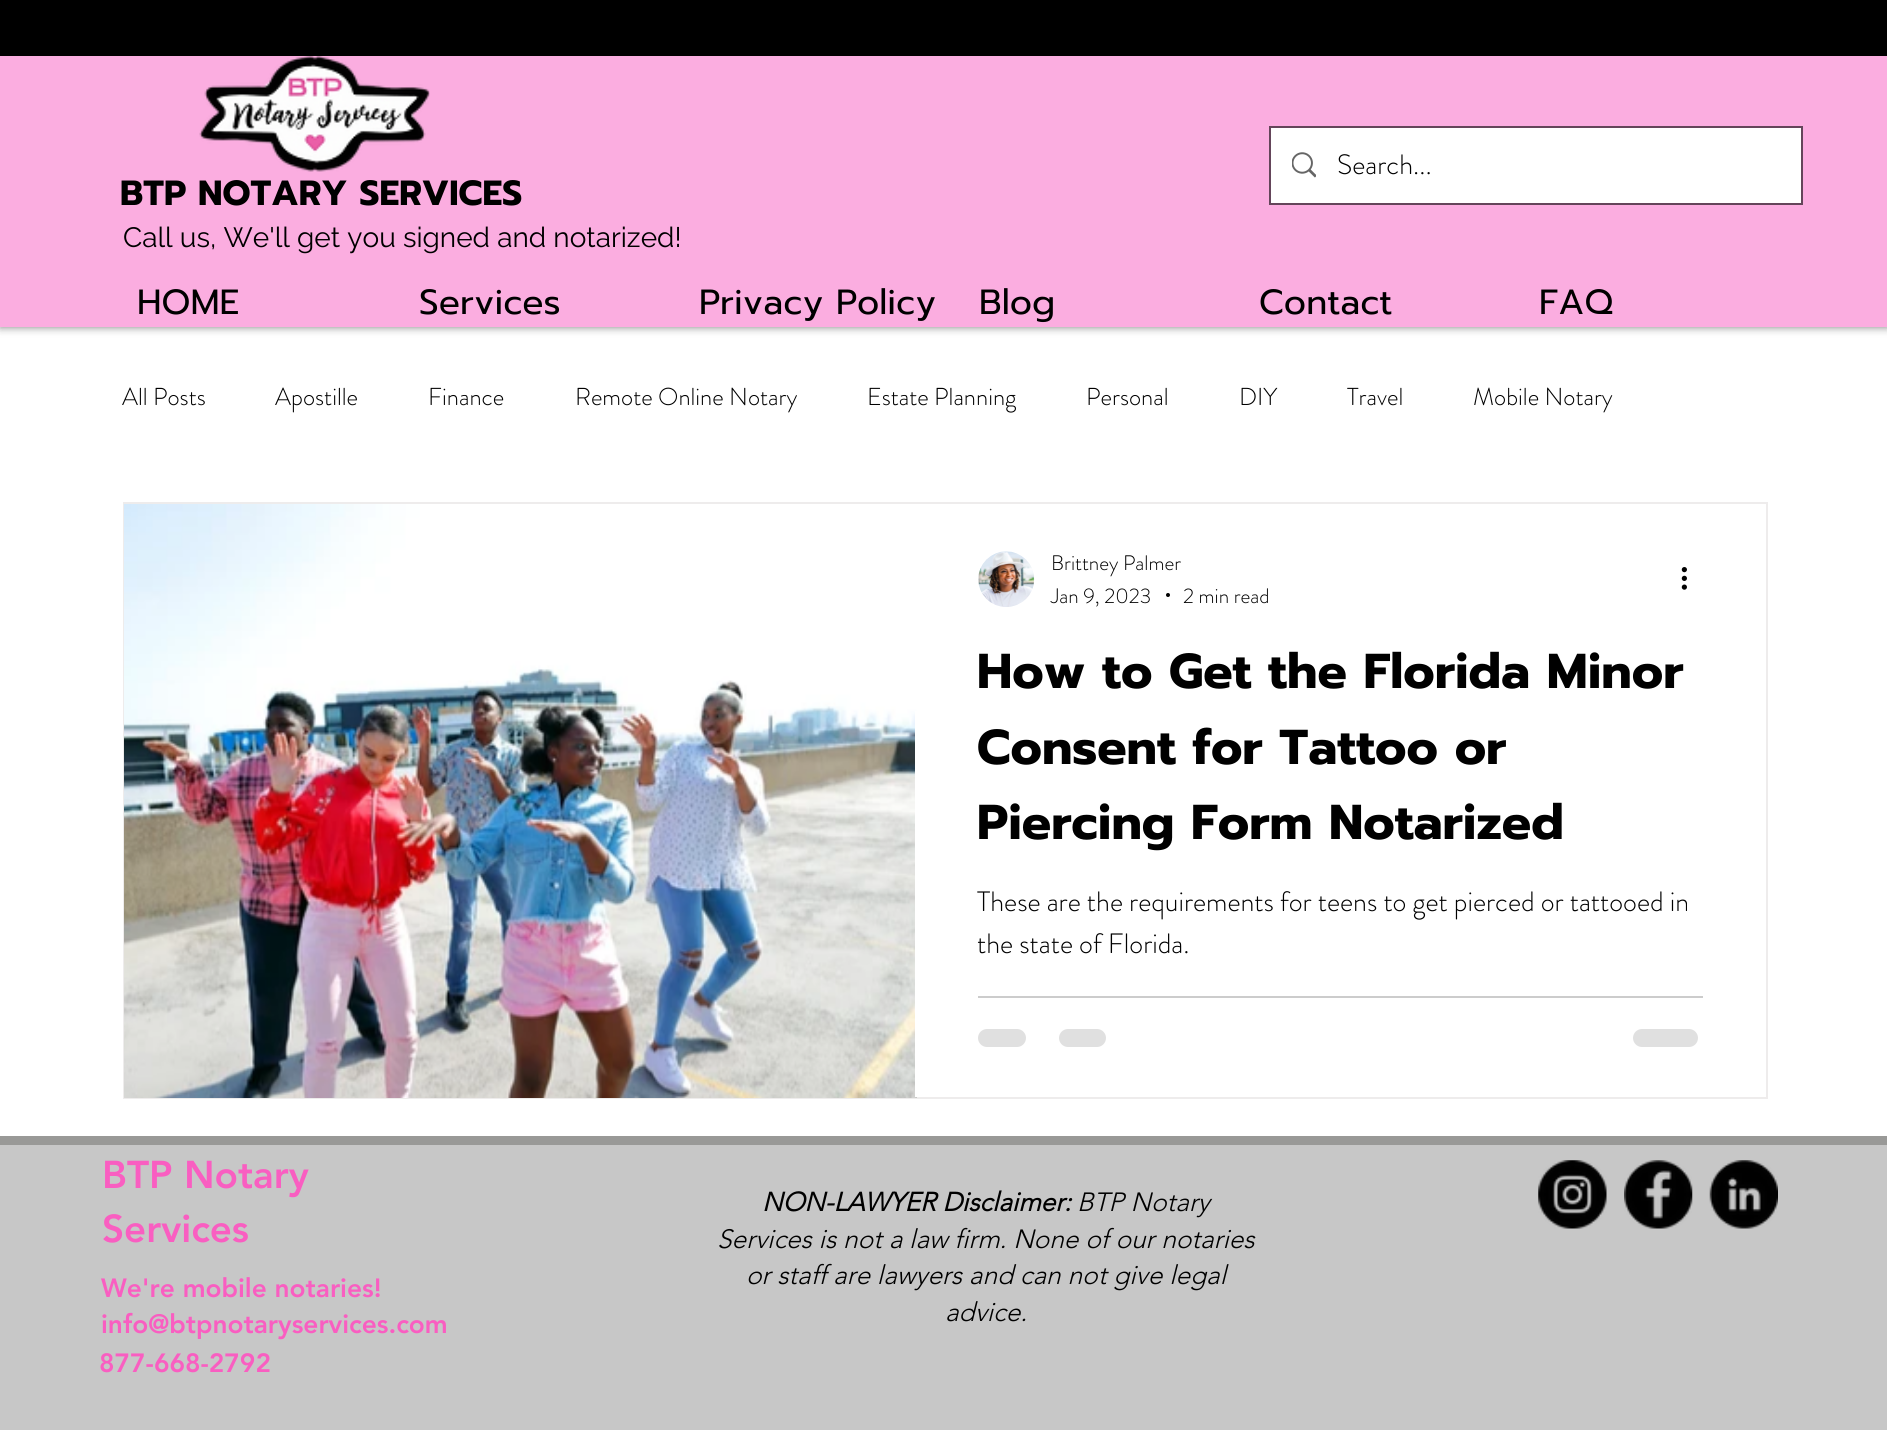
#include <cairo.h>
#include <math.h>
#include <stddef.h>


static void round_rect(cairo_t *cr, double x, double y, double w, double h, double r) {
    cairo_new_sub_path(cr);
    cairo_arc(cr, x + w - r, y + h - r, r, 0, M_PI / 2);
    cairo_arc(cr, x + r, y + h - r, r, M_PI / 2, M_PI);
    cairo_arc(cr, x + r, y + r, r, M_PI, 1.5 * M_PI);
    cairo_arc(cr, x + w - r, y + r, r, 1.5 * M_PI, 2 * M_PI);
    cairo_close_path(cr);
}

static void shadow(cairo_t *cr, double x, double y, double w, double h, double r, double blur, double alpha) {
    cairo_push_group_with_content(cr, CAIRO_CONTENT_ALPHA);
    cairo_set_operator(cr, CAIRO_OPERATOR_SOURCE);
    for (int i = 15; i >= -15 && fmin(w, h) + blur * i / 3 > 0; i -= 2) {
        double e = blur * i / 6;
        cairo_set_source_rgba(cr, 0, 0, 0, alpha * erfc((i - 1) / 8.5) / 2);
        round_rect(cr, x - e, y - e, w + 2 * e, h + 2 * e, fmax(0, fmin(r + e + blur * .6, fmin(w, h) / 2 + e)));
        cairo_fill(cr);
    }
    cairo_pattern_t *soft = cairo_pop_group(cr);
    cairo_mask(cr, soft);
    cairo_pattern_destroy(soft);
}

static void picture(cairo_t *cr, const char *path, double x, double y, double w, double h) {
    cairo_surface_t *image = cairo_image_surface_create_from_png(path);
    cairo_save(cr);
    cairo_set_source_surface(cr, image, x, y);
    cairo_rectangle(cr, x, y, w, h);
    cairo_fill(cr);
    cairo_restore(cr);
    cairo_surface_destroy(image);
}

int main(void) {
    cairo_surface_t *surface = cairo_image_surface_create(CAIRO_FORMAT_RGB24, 1887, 1443);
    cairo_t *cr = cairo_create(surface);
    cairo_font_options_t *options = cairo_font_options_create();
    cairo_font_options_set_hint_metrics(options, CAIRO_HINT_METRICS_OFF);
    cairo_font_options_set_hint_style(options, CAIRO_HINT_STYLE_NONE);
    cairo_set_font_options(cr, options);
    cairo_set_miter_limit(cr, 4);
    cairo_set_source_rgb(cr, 1, 1, 1);
    cairo_paint(cr);
    cairo_set_source_rgb(cr, 0, 0, 0);
    shadow(cr, 0, 0, 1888, 327, 0, 4.5, 0.5);
    cairo_set_source_rgb(cr, 0.984, 0.678, 0.878);
    cairo_rectangle(cr, 0, 56, 1887, 271);
    cairo_fill(cr);
    cairo_set_source_rgb(cr, 0, 0, 0);
    cairo_rectangle(cr, 0, 0, 1887, 56);
    cairo_fill(cr);
    picture(cr, "img1.png", 199, 56, 231, 116);
    cairo_rectangle(cr, 1270, 127, 532, 77);
    cairo_set_source_rgb(cr, 0.392, 0.271, 0.353);
    cairo_stroke(cr);
    cairo_set_source_rgb(cr, 1, 1, 1);
    cairo_rectangle(cr, 1271, 128, 530, 75);
    cairo_fill(cr);
    picture(cr, "img2.png", 1292, 152, 24, 26);
    cairo_select_font_face(cr, "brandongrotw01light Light", CAIRO_FONT_SLANT_NORMAL, CAIRO_FONT_WEIGHT_NORMAL);
    cairo_set_font_size(cr, 28);
    cairo_set_source_rgb(cr, 0, 0, 0);
    cairo_move_to(cr, 1337, 174);
    cairo_show_text(cr, "Search...");
    cairo_select_font_face(cr, "Prompt", CAIRO_FONT_SLANT_NORMAL, CAIRO_FONT_WEIGHT_BOLD);
    cairo_set_font_size(cr, 35);
    cairo_move_to(cr, 120, 205);
    cairo_show_text(cr, "BTP NOTARY SERVICES");
    cairo_select_font_face(cr, "Raleway", CAIRO_FONT_SLANT_NORMAL, CAIRO_FONT_WEIGHT_NORMAL);
    cairo_set_font_size(cr, 28);
    cairo_move_to(cr, 123, 247);
    cairo_show_text(cr, "Call us, We'll get you signed and notarized!");
    cairo_select_font_face(cr, "Prompt", CAIRO_FONT_SLANT_NORMAL, CAIRO_FONT_WEIGHT_NORMAL);
    cairo_set_font_size(cr, 35);
    cairo_move_to(cr, 137, 314);
    cairo_show_text(cr, "HOME");
    cairo_move_to(cr, 419, 314);
    cairo_show_text(cr, "Services");
    cairo_move_to(cr, 699, 314);
    cairo_show_text(cr, "Privacy Policy");
    cairo_move_to(cr, 979, 314);
    cairo_show_text(cr, "Blog");
    cairo_move_to(cr, 1259, 314);
    cairo_show_text(cr, "Contact");
    cairo_move_to(cr, 1539, 314);
    cairo_show_text(cr, "FAQ");
    cairo_select_font_face(cr, "brandongrotw01light Light", CAIRO_FONT_SLANT_NORMAL, CAIRO_FONT_WEIGHT_NORMAL);
    cairo_set_font_size(cr, 24.5);
    cairo_move_to(cr, 122, 405);
    cairo_show_text(cr, "All Posts");
    cairo_move_to(cr, 275, 405);
    cairo_show_text(cr, "Apostille");
    cairo_move_to(cr, 428, 405);
    cairo_show_text(cr, "Finance");
    cairo_move_to(cr, 575, 405);
    cairo_show_text(cr, "Remote Online Notary");
    cairo_move_to(cr, 867, 405);
    cairo_show_text(cr, "Estate Planning");
    cairo_move_to(cr, 1086, 405);
    cairo_show_text(cr, "Personal");
    cairo_move_to(cr, 1239, 405);
    cairo_show_text(cr, "DIY");
    cairo_move_to(cr, 1347, 405);
    cairo_show_text(cr, "Travel");
    cairo_move_to(cr, 1473, 405);
    cairo_show_text(cr, "Mobile Notary");
    cairo_rectangle(cr, 124, 503, 1643, 595);
    cairo_set_source_rgb(cr, 0.933, 0.925, 0.925);
    cairo_stroke(cr);
    picture(cr, "img3.png", 124, 504, 793, 594);
    cairo_set_source_rgb(cr, 1, 1, 1);
    cairo_rectangle(cr, 915, 711, 2, 386);
    cairo_fill(cr);
    picture(cr, "img4.png", 978, 551, 57, 56);
    cairo_set_font_size(cr, 21);
    cairo_set_source_rgb(cr, 0, 0, 0);
    cairo_move_to(cr, 1051, 570);
    cairo_show_text(cr, "Brittney Palmer");
    cairo_move_to(cr, 1051, 603);
    cairo_show_text(cr, "Jan 9, 2023");
    cairo_new_path(cr);
    cairo_arc(cr, 1168, 595, 2, 0, 2 * M_PI);
    cairo_fill(cr);
    cairo_move_to(cr, 1183, 603);
    cairo_show_text(cr, "2 min read");
    picture(cr, "img5.png", 1681, 567, 6, 23);
    cairo_select_font_face(cr, "Prompt", CAIRO_FONT_SLANT_NORMAL, CAIRO_FONT_WEIGHT_BOLD);
    cairo_set_font_size(cr, 49);
    cairo_move_to(cr, 977, 688);
    cairo_show_text(cr, "How to Get the Florida Minor");
    cairo_move_to(cr, 977, 764);
    cairo_show_text(cr, "Consent for Tattoo or");
    cairo_move_to(cr, 977, 839);
    cairo_show_text(cr, "Piercing Form Notarized");
    cairo_select_font_face(cr, "brandongrotw01light Light", CAIRO_FONT_SLANT_NORMAL, CAIRO_FONT_WEIGHT_NORMAL);
    cairo_set_font_size(cr, 28);
    cairo_move_to(cr, 977, 911);
    cairo_show_text(cr, "These are the requirements for teens to get pierced or tattooed in");
    cairo_move_to(cr, 977, 953);
    cairo_show_text(cr, "the state of Florida.");
    cairo_set_source_rgb(cr, 0.8, 0.8, 0.8);
    cairo_rectangle(cr, 978, 996, 725, 2);
    cairo_fill(cr);
    cairo_set_source_rgb(cr, 0.878, 0.878, 0.878);
    round_rect(cr, 978, 1029, 48, 18, 9);
    cairo_fill(cr);
    round_rect(cr, 1059, 1029, 47, 18, 9);
    cairo_fill(cr);
    round_rect(cr, 1633, 1029, 65, 18, 9);
    cairo_fill(cr);
    cairo_set_source_rgb(cr, 0.78, 0.78, 0.78);
    cairo_rectangle(cr, 0, 1145, 1887, 285);
    cairo_fill(cr);
    cairo_set_source_rgb(cr, 0.6, 0.6, 0.592);
    cairo_rectangle(cr, 0, 1136, 1887, 9);
    cairo_fill(cr);
    cairo_select_font_face(cr, "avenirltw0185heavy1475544 Black", CAIRO_FONT_SLANT_NORMAL, CAIRO_FONT_WEIGHT_NORMAL);
    cairo_set_font_size(cr, 38.5);
    cairo_set_source_rgb(cr, 0.973, 0.369, 0.757);
    cairo_move_to(cr, 102, 1188);
    cairo_show_text(cr, "BTP Notary");
    cairo_move_to(cr, 102, 1242);
    cairo_show_text(cr, "Services");
    cairo_select_font_face(cr, "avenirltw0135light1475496", CAIRO_FONT_SLANT_ITALIC, CAIRO_FONT_WEIGHT_BOLD);
    cairo_set_font_size(cr, 26.25);
    cairo_set_source_rgb(cr, 0, 0, 0);
    cairo_move_to(cr, 762, 1211);
    cairo_show_text(cr, "NON-LAWYER Disclaimer:");
    cairo_select_font_face(cr, "avenirltw0135light1475496 Light", CAIRO_FONT_SLANT_ITALIC, CAIRO_FONT_WEIGHT_NORMAL);
    cairo_move_to(cr, 1077, 1211);
    cairo_show_text(cr, "BTP Notary");
    cairo_move_to(cr, 717, 1248);
    cairo_show_text(cr, "Services is not a law firm. None of our notaries");
    cairo_move_to(cr, 746, 1284);
    cairo_show_text(cr, "or staff are lawyers and can not give legal");
    cairo_move_to(cr, 945, 1321);
    cairo_show_text(cr, "advice.");
    picture(cr, "img6.png", 1538, 1160, 69, 69);
    picture(cr, "img7.png", 1624, 1160, 69, 69);
    picture(cr, "img8.png", 1709, 1160, 69, 69);
    cairo_select_font_face(cr, "avenirltw0185heavy1475544 Black", CAIRO_FONT_SLANT_NORMAL, CAIRO_FONT_WEIGHT_NORMAL);
    cairo_set_source_rgb(cr, 0.973, 0.369, 0.757);
    cairo_move_to(cr, 101, 1297);
    cairo_show_text(cr, "We're mobile notaries!");
    cairo_move_to(cr, 101, 1333);
    cairo_show_text(cr, "info@btpnotaryservices.com");
    cairo_move_to(cr, 99, 1372);
    cairo_show_text(cr, "877-668-2792");
    cairo_surface_write_to_png(surface, "page.png");
    cairo_font_options_destroy(options);
    cairo_destroy(cr);
    cairo_surface_destroy(surface);
    return 0;
}
